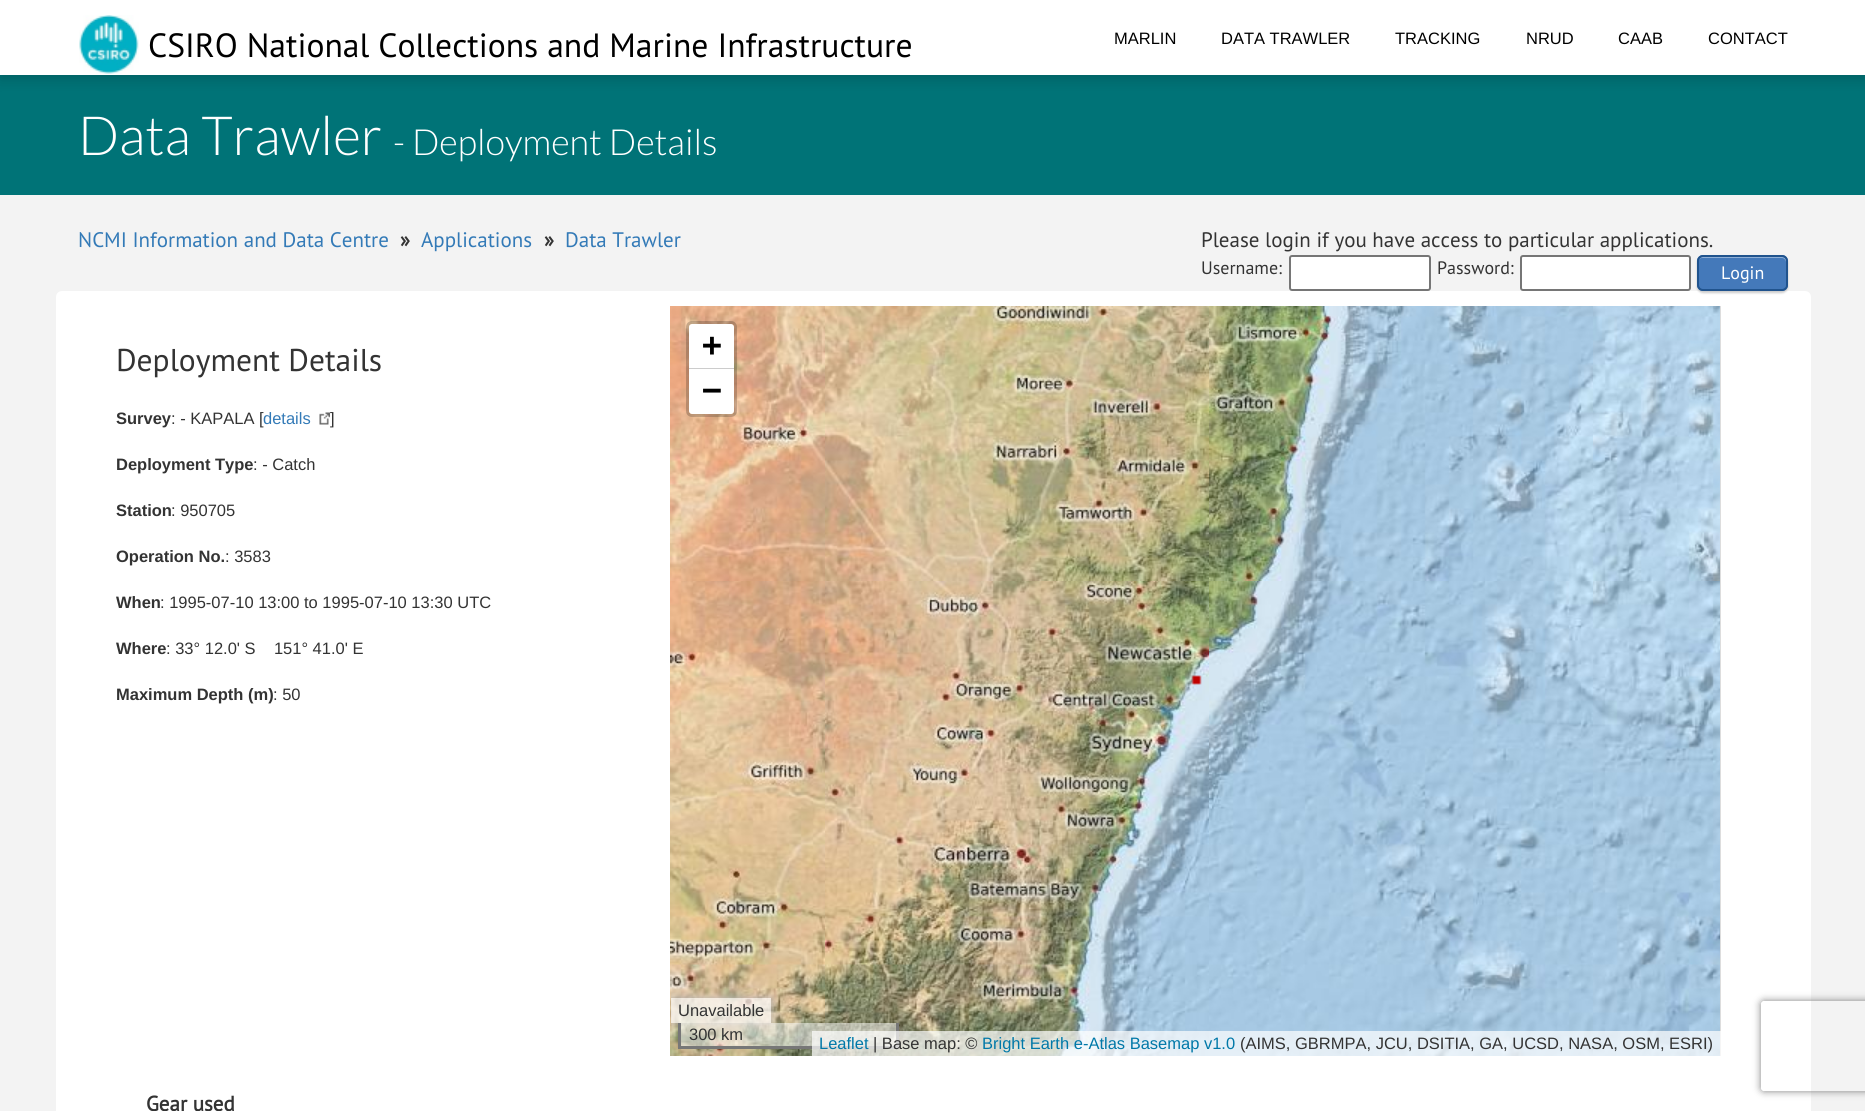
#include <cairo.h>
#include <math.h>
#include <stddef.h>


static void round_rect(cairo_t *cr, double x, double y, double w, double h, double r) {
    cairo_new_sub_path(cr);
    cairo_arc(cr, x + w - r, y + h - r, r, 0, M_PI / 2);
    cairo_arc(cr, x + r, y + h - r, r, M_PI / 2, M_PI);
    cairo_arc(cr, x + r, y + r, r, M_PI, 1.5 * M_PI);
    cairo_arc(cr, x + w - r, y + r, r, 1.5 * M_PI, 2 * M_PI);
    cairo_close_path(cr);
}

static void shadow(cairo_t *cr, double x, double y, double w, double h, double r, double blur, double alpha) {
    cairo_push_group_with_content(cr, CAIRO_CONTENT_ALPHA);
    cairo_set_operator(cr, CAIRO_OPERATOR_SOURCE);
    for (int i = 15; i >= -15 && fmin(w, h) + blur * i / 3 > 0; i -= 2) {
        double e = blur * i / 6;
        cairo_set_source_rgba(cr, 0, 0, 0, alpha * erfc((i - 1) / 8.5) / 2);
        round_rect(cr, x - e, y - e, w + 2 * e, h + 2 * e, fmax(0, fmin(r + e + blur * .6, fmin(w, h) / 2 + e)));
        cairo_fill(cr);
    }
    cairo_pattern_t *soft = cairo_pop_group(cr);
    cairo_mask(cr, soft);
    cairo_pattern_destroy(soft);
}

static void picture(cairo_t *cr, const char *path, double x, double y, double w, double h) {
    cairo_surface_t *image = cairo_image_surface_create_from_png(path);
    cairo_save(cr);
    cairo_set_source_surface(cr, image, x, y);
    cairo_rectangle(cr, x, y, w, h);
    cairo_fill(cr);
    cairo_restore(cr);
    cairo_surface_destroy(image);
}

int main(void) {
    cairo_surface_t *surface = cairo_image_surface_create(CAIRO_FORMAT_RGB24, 1865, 1111);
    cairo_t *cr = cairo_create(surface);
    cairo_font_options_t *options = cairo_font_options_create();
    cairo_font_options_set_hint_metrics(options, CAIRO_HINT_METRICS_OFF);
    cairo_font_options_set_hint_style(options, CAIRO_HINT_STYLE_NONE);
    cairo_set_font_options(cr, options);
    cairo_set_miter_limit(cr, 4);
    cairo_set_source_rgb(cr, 0.953, 0.953, 0.953);
    cairo_paint(cr);
    cairo_set_source_rgb(cr, 0, 0.451, 0.467);
    cairo_rectangle(cr, 0, 75, 1865, 120);
    cairo_fill(cr);
    cairo_set_source_rgb(cr, 0, 0, 0);
    shadow(cr, 0, 3, 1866, 75, 0, 7.5, 0.2);
    cairo_set_source_rgb(cr, 1, 1, 1);
    cairo_rectangle(cr, 0, 0, 1865, 75);
    cairo_fill(cr);
    picture(cr, "img1.png", 79, 15, 60, 59);
    cairo_select_font_face(cr, "PT Sans", CAIRO_FONT_SLANT_NORMAL, CAIRO_FONT_WEIGHT_NORMAL);
    cairo_set_font_size(cr, 33.6);
    cairo_set_source_rgb(cr, 0, 0, 0);
    cairo_move_to(cr, 148, 57);
    cairo_show_text(cr, "CSIRO National Collections and Marine Infrastructure");
    cairo_select_font_face(cr, "Liberation Sans", CAIRO_FONT_SLANT_NORMAL, CAIRO_FONT_WEIGHT_NORMAL);
    cairo_set_font_size(cr, 16.5);
    cairo_move_to(cr, 1114, 44);
    cairo_show_text(cr, "MARLIN");
    cairo_move_to(cr, 1221, 44);
    cairo_show_text(cr, "DATA TRAWLER");
    cairo_move_to(cr, 1395, 44);
    cairo_show_text(cr, "TRACKING");
    cairo_move_to(cr, 1526, 44);
    cairo_show_text(cr, "NRUD");
    cairo_move_to(cr, 1618, 44);
    cairo_show_text(cr, "CAAB");
    cairo_move_to(cr, 1708, 44);
    cairo_show_text(cr, "CONTACT");
    cairo_select_font_face(cr, "Lato Light", CAIRO_FONT_SLANT_NORMAL, CAIRO_FONT_WEIGHT_NORMAL);
    cairo_set_font_size(cr, 54);
    cairo_set_source_rgb(cr, 1, 1, 1);
    cairo_move_to(cr, 78, 155);
    cairo_show_text(cr, "Data Trawler");
    cairo_set_font_size(cr, 36);
    cairo_move_to(cr, 393, 155);
    cairo_show_text(cr, "- Deployment Details");
    cairo_select_font_face(cr, "PT Sans", CAIRO_FONT_SLANT_NORMAL, CAIRO_FONT_WEIGHT_NORMAL);
    cairo_set_font_size(cr, 21);
    cairo_set_source_rgb(cr, 0.2, 0.478, 0.718);
    cairo_move_to(cr, 78, 247);
    cairo_show_text(cr, "NCMI Information and Data Centre");
    cairo_select_font_face(cr, "PT Sans", CAIRO_FONT_SLANT_NORMAL, CAIRO_FONT_WEIGHT_BOLD);
    cairo_set_source_rgb(cr, 0.2, 0.2, 0.2);
    cairo_move_to(cr, 400, 247);
    cairo_show_text(cr, "»");
    cairo_select_font_face(cr, "PT Sans", CAIRO_FONT_SLANT_NORMAL, CAIRO_FONT_WEIGHT_NORMAL);
    cairo_set_source_rgb(cr, 0.2, 0.478, 0.718);
    cairo_move_to(cr, 421, 247);
    cairo_show_text(cr, "Applications");
    cairo_select_font_face(cr, "PT Sans", CAIRO_FONT_SLANT_NORMAL, CAIRO_FONT_WEIGHT_BOLD);
    cairo_set_source_rgb(cr, 0.2, 0.2, 0.2);
    cairo_move_to(cr, 544, 247);
    cairo_show_text(cr, "»");
    cairo_select_font_face(cr, "PT Sans", CAIRO_FONT_SLANT_NORMAL, CAIRO_FONT_WEIGHT_NORMAL);
    cairo_set_source_rgb(cr, 0.2, 0.478, 0.718);
    cairo_move_to(cr, 565, 247);
    cairo_show_text(cr, "Data Trawler");
    cairo_set_source_rgb(cr, 0.2, 0.2, 0.2);
    cairo_move_to(cr, 1201, 247);
    cairo_show_text(cr, "Please login if you have access to particular applications.");
    cairo_set_font_size(cr, 18);
    cairo_move_to(cr, 1201, 274);
    cairo_show_text(cr, "Username:");
    cairo_set_source_rgb(cr, 1, 1, 1);
    round_rect(cr, 1290, 256, 140, 34, 2);
    cairo_fill_preserve(cr);
    cairo_set_source_rgb(cr, 0.463, 0.463, 0.463);
    cairo_stroke(cr);
    cairo_set_source_rgb(cr, 0.2, 0.2, 0.2);
    cairo_move_to(cr, 1437, 274);
    cairo_show_text(cr, "Password:");
    cairo_set_source_rgb(cr, 1, 1, 1);
    round_rect(cr, 1521, 256, 169, 34, 2);
    cairo_fill_preserve(cr);
    cairo_set_source_rgb(cr, 0.463, 0.463, 0.463);
    cairo_stroke(cr);
    cairo_set_source_rgb(cr, 1, 1, 1);
    round_rect(cr, 56, 291, 1755, 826, 6);
    cairo_fill(cr);
    cairo_set_source_rgb(cr, 0, 0, 0);
    shadow(cr, 1697, 257, 91, 36, 6, 1, 0.2);
    cairo_set_source_rgb(cr, 0.267, 0.475, 0.729);
    round_rect(cr, 1697, 255, 91, 36, 6);
    cairo_fill(cr);
    cairo_set_source_rgb(cr, 0.561, 0.686, 0.839);
    cairo_new_path(cr);
    cairo_move_to(cr, 1702, 258);
    cairo_line_to(cr, 1782, 258);
    cairo_curve_to(cr, 1784, 258, 1786, 260, 1786, 262);
    cairo_line_to(cr, 1786, 286);
    cairo_line_to(cr, 1785, 289);
    cairo_curve_to(cr, 1786, 288, 1787, 286, 1787, 285);
    cairo_line_to(cr, 1787, 262);
    cairo_curve_to(cr, 1787, 259, 1785, 257, 1782, 257);
    cairo_line_to(cr, 1703, 257);
    cairo_curve_to(cr, 1700, 257, 1698, 259, 1698, 262);
    cairo_curve_to(cr, 1698, 260, 1700, 258, 1702, 258);
    cairo_close_path(cr);
    cairo_fill(cr);
    round_rect(cr, 1698, 256, 89, 34, 5);
    cairo_set_source_rgb(cr, 0.125, 0.325, 0.553);
    cairo_stroke(cr);
    cairo_set_source_rgb(cr, 1, 1, 1);
    cairo_move_to(cr, 1721, 279);
    cairo_show_text(cr, "Login");
    cairo_save(cr);
    cairo_set_fill_rule(cr, CAIRO_FILL_RULE_EVEN_ODD);
    cairo_new_path(cr);
    cairo_move_to(cr, 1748, 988);
    cairo_line_to(cr, 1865, 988);
    cairo_line_to(cr, 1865, 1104);
    cairo_line_to(cr, 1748, 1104);
    cairo_close_path(cr);
    cairo_move_to(cr, 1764, 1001);
    cairo_line_to(cr, 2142, 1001);
    cairo_curve_to(cr, 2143.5, 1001, 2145, 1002.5, 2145, 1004);
    cairo_line_to(cr, 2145, 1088);
    cairo_curve_to(cr, 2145, 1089.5, 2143.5, 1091, 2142, 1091);
    cairo_line_to(cr, 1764, 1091);
    cairo_curve_to(cr, 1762.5, 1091, 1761, 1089.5, 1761, 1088);
    cairo_line_to(cr, 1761, 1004);
    cairo_curve_to(cr, 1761, 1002.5, 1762.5, 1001, 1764, 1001);
    cairo_close_path(cr);
    cairo_clip(cr);
    cairo_set_source_rgb(cr, 0.502, 0.502, 0.502);
    shadow(cr, 1761, 1001, 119, 90, 3, 4, 1);
    cairo_restore(cr);
    cairo_set_font_size(cr, 31.5);
    cairo_set_source_rgb(cr, 0.2, 0.2, 0.2);
    cairo_move_to(cr, 116, 371);
    cairo_show_text(cr, "Deployment Details");
    cairo_select_font_face(cr, "Liberation Sans", CAIRO_FONT_SLANT_NORMAL, CAIRO_FONT_WEIGHT_BOLD);
    cairo_set_font_size(cr, 16.5);
    cairo_move_to(cr, 116, 424);
    cairo_show_text(cr, "Survey");
    cairo_select_font_face(cr, "Liberation Sans", CAIRO_FONT_SLANT_NORMAL, CAIRO_FONT_WEIGHT_NORMAL);
    cairo_move_to(cr, 171, 424);
    cairo_show_text(cr, ": - KAPALA [");
    cairo_set_source_rgb(cr, 0.2, 0.478, 0.718);
    cairo_move_to(cr, 263, 424);
    cairo_show_text(cr, "details");
    picture(cr, "img2.png", 319, 412, 11, 13);
    cairo_set_source_rgb(cr, 0.2, 0.2, 0.2);
    cairo_move_to(cr, 330, 424);
    cairo_show_text(cr, "]");
    cairo_select_font_face(cr, "Liberation Sans", CAIRO_FONT_SLANT_NORMAL, CAIRO_FONT_WEIGHT_BOLD);
    cairo_move_to(cr, 116, 470);
    cairo_show_text(cr, "Deployment Type");
    cairo_select_font_face(cr, "Liberation Sans", CAIRO_FONT_SLANT_NORMAL, CAIRO_FONT_WEIGHT_NORMAL);
    cairo_move_to(cr, 253, 470);
    cairo_show_text(cr, ": - Catch");
    cairo_select_font_face(cr, "Liberation Sans", CAIRO_FONT_SLANT_NORMAL, CAIRO_FONT_WEIGHT_BOLD);
    cairo_move_to(cr, 116, 516);
    cairo_show_text(cr, "Station");
    cairo_select_font_face(cr, "Liberation Sans", CAIRO_FONT_SLANT_NORMAL, CAIRO_FONT_WEIGHT_NORMAL);
    cairo_move_to(cr, 171, 516);
    cairo_show_text(cr, ": 950705");
    cairo_select_font_face(cr, "Liberation Sans", CAIRO_FONT_SLANT_NORMAL, CAIRO_FONT_WEIGHT_BOLD);
    cairo_move_to(cr, 116, 562);
    cairo_show_text(cr, "Operation No.");
    cairo_select_font_face(cr, "Liberation Sans", CAIRO_FONT_SLANT_NORMAL, CAIRO_FONT_WEIGHT_NORMAL);
    cairo_move_to(cr, 225, 562);
    cairo_show_text(cr, ": 3583");
    cairo_select_font_face(cr, "Liberation Sans", CAIRO_FONT_SLANT_NORMAL, CAIRO_FONT_WEIGHT_BOLD);
    cairo_move_to(cr, 116, 608);
    cairo_show_text(cr, "When");
    cairo_select_font_face(cr, "Liberation Sans", CAIRO_FONT_SLANT_NORMAL, CAIRO_FONT_WEIGHT_NORMAL);
    cairo_move_to(cr, 160, 608);
    cairo_show_text(cr, ": 1995-07-10 13:00 to 1995-07-10 13:30 UTC");
    cairo_select_font_face(cr, "Liberation Sans", CAIRO_FONT_SLANT_NORMAL, CAIRO_FONT_WEIGHT_BOLD);
    cairo_move_to(cr, 116, 654);
    cairo_show_text(cr, "Where");
    cairo_select_font_face(cr, "Liberation Sans", CAIRO_FONT_SLANT_NORMAL, CAIRO_FONT_WEIGHT_NORMAL);
    cairo_move_to(cr, 166, 654);
    cairo_show_text(cr, ": 33° 12.0' S    151° 41.0' E");
    cairo_select_font_face(cr, "Liberation Sans", CAIRO_FONT_SLANT_NORMAL, CAIRO_FONT_WEIGHT_BOLD);
    cairo_move_to(cr, 116, 700);
    cairo_show_text(cr, "Maximum Depth (m)");
    cairo_select_font_face(cr, "Liberation Sans", CAIRO_FONT_SLANT_NORMAL, CAIRO_FONT_WEIGHT_NORMAL);
    cairo_move_to(cr, 273, 700);
    cairo_show_text(cr, ": 50");
    cairo_set_source_rgb(cr, 0.867, 0.867, 0.867);
    cairo_rectangle(cr, 1720, 306, 1, 750);
    cairo_fill(cr);
    picture(cr, "img3.png", 670, 306, 155, 275);
    picture(cr, "img4.png", 825, 306, 384, 275);
    picture(cr, "img5.png", 1209, 306, 384, 275);
    picture(cr, "img6.png", 1593, 306, 127, 275);
    picture(cr, "img7.png", 670, 581, 155, 384);
    picture(cr, "img8.png", 825, 581, 384, 384);
    picture(cr, "img9.png", 1209, 581, 384, 384);
    picture(cr, "img10.png", 1593, 581, 127, 384);
    picture(cr, "img11.png", 670, 964, 155, 92);
    picture(cr, "img12.png", 825, 964, 384, 92);
    picture(cr, "img13.png", 1209, 964, 384, 92);
    picture(cr, "img14.png", 1593, 964, 127, 92);
    picture(cr, "img15.png", 1191, 675, 11, 10);
    round_rect(cr, 687.5, 322.5, 48, 93, 4.5);
    cairo_set_source_rgba(cr, 0, 0, 0, 0.2);
    cairo_set_line_width(cr, 3);
    cairo_stroke(cr);
    cairo_set_source_rgb(cr, 1, 1, 1);
    cairo_new_path(cr);
    cairo_move_to(cr, 692, 324);
    cairo_line_to(cr, 731, 324);
    cairo_curve_to(cr, 732.5, 324, 734, 325.5, 734, 327);
    cairo_line_to(cr, 734, 369);
    cairo_line_to(cr, 689, 369);
    cairo_line_to(cr, 689, 327);
    cairo_curve_to(cr, 689, 325.5, 690.5, 324, 692, 324);
    cairo_close_path(cr);
    cairo_fill(cr);
    cairo_set_source_rgb(cr, 0.8, 0.8, 0.8);
    cairo_rectangle(cr, 689, 368, 45, 1);
    cairo_fill(cr);
    cairo_select_font_face(cr, "DejaVu Sans Mono", CAIRO_FONT_SLANT_NORMAL, CAIRO_FONT_WEIGHT_BOLD);
    cairo_set_font_size(cr, 33);
    cairo_set_source_rgb(cr, 0, 0, 0);
    cairo_move_to(cr, 702, 356);
    cairo_show_text(cr, "+");
    cairo_set_source_rgb(cr, 1, 1, 1);
    cairo_new_path(cr);
    cairo_move_to(cr, 689, 369);
    cairo_line_to(cr, 734, 369);
    cairo_line_to(cr, 734, 411);
    cairo_curve_to(cr, 734, 412.5, 732.5, 414, 731, 414);
    cairo_line_to(cr, 692, 414);
    cairo_curve_to(cr, 690.5, 414, 689, 412.5, 689, 411);
    cairo_close_path(cr);
    cairo_fill(cr);
    cairo_set_source_rgb(cr, 0, 0, 0);
    cairo_move_to(cr, 702, 401);
    cairo_show_text(cr, "−");
    cairo_save(cr);
    cairo_rectangle(cr, 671, 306, 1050, 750);
    cairo_clip(cr);
    cairo_set_fill_rule(cr, CAIRO_FILL_RULE_EVEN_ODD);
    cairo_new_path(cr);
    cairo_move_to(cr, 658, 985);
    cairo_line_to(cr, 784, 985);
    cairo_line_to(cr, 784, 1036);
    cairo_line_to(cr, 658, 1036);
    cairo_close_path(cr);
    cairo_move_to(cr, 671, 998);
    cairo_line_to(cr, 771, 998);
    cairo_line_to(cr, 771, 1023);
    cairo_line_to(cr, 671, 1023);
    cairo_close_path(cr);
    cairo_clip(cr);
    cairo_set_source_rgb(cr, 0.733, 0.733, 0.733);
    shadow(cr, 671, 998, 100, 25, 0, 4, 1);
    cairo_restore(cr);
    cairo_set_source_rgba(cr, 1, 1, 1, 0.7);
    cairo_rectangle(cr, 671, 998, 100, 25);
    cairo_fill(cr);
    cairo_select_font_face(cr, "Liberation Sans", CAIRO_FONT_SLANT_NORMAL, CAIRO_FONT_WEIGHT_NORMAL);
    cairo_set_font_size(cr, 16.5);
    cairo_set_source_rgb(cr, 0.2, 0.2, 0.2);
    cairo_move_to(cr, 678, 1016);
    cairo_show_text(cr, "Unavailable");
    cairo_set_source_rgba(cr, 1, 1, 1, 0.5);
    cairo_rectangle(cr, 681, 1023, 215, 23);
    cairo_fill(cr);
    cairo_set_source_rgb(cr, 0.467, 0.467, 0.467);
    cairo_rectangle(cr, 896, 1023, 3, 26);
    cairo_fill(cr);
    cairo_rectangle(cr, 678, 1046, 221, 3);
    cairo_fill(cr);
    cairo_rectangle(cr, 678, 1023, 3, 26);
    cairo_fill(cr);
    cairo_set_source_rgb(cr, 0.2, 0.2, 0.2);
    cairo_move_to(cr, 689, 1040);
    cairo_show_text(cr, "300 km");
    cairo_set_source_rgba(cr, 1, 1, 1, 0.7);
    cairo_rectangle(cr, 812, 1031, 909, 25);
    cairo_fill(cr);
    cairo_set_source_rgb(cr, 0, 0.471, 0.659);
    cairo_move_to(cr, 819, 1049);
    cairo_show_text(cr, "Leaflet");
    cairo_set_source_rgb(cr, 0.2, 0.2, 0.2);
    cairo_move_to(cr, 873, 1049);
    cairo_show_text(cr, "| Base map: ©");
    cairo_set_source_rgb(cr, 0, 0.471, 0.659);
    cairo_move_to(cr, 982, 1049);
    cairo_show_text(cr, "Bright Earth e-Atlas Basemap v1.0");
    cairo_set_source_rgb(cr, 0.2, 0.2, 0.2);
    cairo_move_to(cr, 1240, 1049);
    cairo_show_text(cr, "(AIMS, GBRMPA, JCU, DSITIA, GA, UCSD, NASA, OSM, ESRI)");
    cairo_select_font_face(cr, "PT Sans", CAIRO_FONT_SLANT_NORMAL, CAIRO_FONT_WEIGHT_BOLD);
    cairo_set_font_size(cr, 21);
    cairo_move_to(cr, 146, 1111);
    cairo_show_text(cr, "Gear used");
    cairo_surface_write_to_png(surface, "page.png");
    cairo_font_options_destroy(options);
    cairo_destroy(cr);
    cairo_surface_destroy(surface);
    return 0;
}
